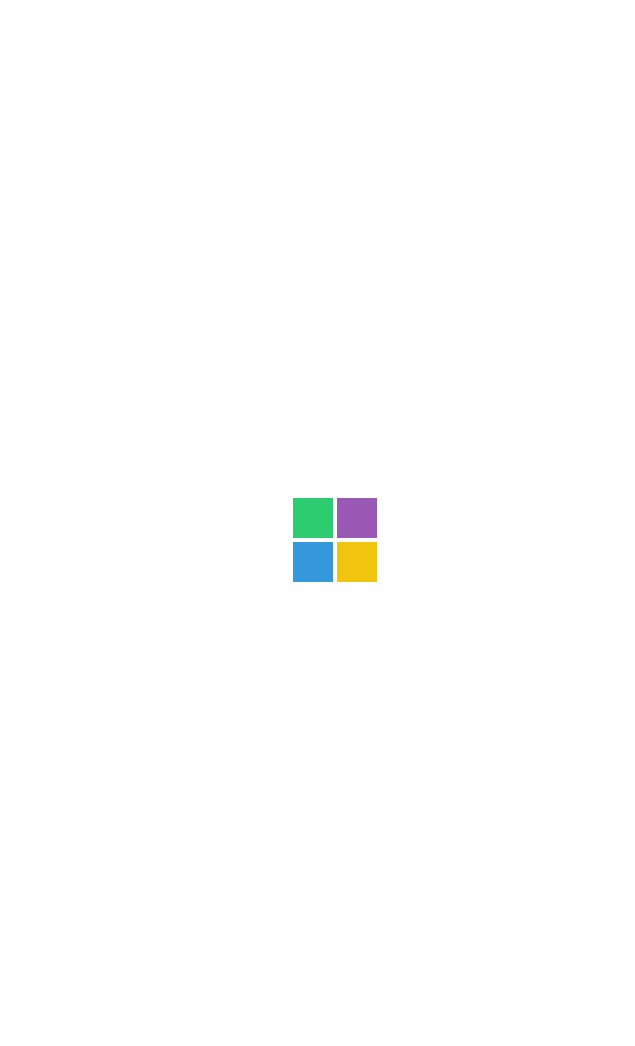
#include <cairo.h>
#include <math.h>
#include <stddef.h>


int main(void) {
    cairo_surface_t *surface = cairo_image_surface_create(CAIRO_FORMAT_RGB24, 635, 1046);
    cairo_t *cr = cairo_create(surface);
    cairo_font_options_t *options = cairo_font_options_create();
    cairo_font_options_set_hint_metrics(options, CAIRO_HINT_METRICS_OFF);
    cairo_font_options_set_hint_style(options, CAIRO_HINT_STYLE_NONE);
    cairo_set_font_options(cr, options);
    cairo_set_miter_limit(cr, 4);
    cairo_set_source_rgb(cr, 0.996, 0.996, 0.996);
    cairo_paint(cr);
    cairo_set_source_rgb(cr, 0.18, 0.8, 0.443);
    cairo_rectangle(cr, 293, 498, 40, 40);
    cairo_fill(cr);
    cairo_set_source_rgb(cr, 0.608, 0.349, 0.714);
    cairo_rectangle(cr, 337, 498, 40, 40);
    cairo_fill(cr);
    cairo_set_source_rgb(cr, 0.204, 0.596, 0.859);
    cairo_rectangle(cr, 293, 542, 40, 40);
    cairo_fill(cr);
    cairo_set_source_rgb(cr, 0.945, 0.769, 0.059);
    cairo_rectangle(cr, 337, 542, 40, 40);
    cairo_fill(cr);
    cairo_surface_write_to_png(surface, "page.png");
    cairo_font_options_destroy(options);
    cairo_destroy(cr);
    cairo_surface_destroy(surface);
    return 0;
}
